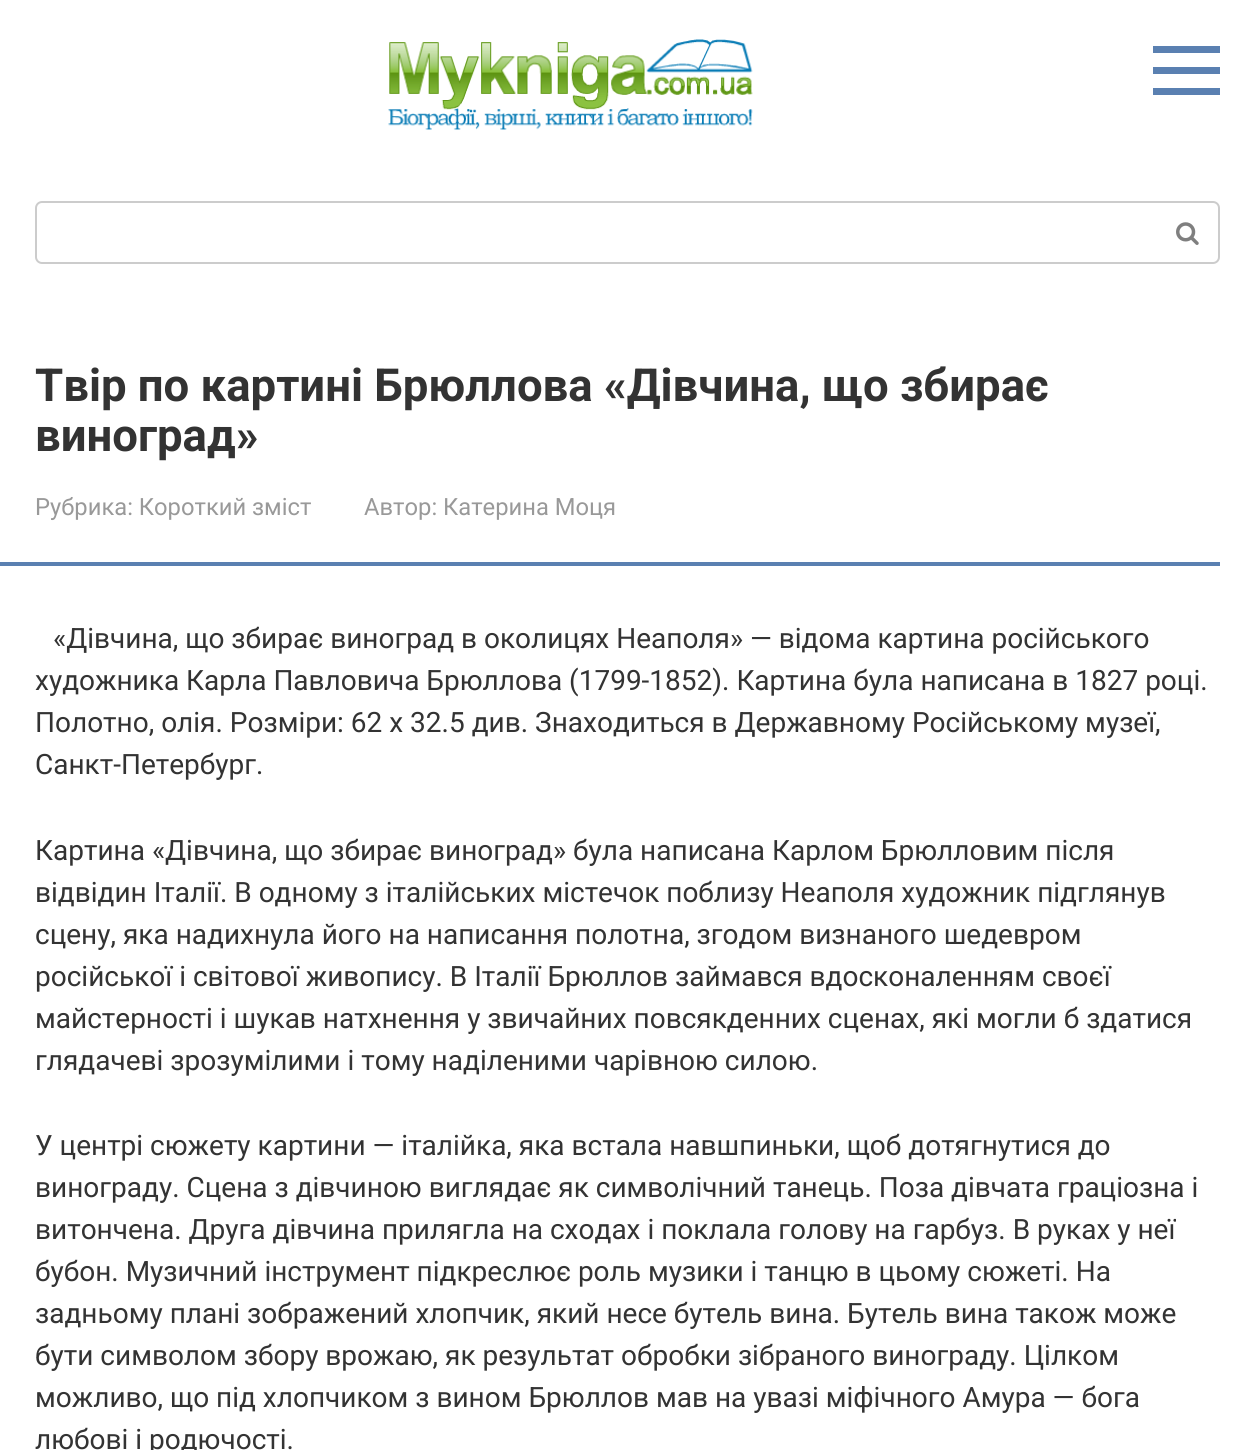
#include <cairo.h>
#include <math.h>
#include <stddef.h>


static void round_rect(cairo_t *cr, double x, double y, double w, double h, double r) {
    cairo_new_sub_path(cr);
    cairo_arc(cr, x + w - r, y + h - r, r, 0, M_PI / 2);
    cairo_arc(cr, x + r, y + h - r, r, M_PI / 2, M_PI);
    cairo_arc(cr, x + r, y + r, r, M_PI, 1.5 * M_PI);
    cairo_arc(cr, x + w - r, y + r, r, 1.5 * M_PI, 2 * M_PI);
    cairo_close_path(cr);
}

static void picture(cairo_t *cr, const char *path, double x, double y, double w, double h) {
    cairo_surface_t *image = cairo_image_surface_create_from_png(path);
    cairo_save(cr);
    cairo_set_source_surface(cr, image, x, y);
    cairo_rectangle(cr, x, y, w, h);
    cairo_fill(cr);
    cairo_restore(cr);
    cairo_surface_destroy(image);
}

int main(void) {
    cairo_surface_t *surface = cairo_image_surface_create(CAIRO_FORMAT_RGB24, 1254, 1450);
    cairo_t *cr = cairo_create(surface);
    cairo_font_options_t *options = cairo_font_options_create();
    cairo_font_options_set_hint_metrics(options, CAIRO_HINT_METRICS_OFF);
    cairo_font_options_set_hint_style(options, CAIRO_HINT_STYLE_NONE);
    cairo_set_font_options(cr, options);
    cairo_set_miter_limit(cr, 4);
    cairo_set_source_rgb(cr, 1, 1, 1);
    cairo_paint(cr);
    picture(cr, "img1.png", 388, 39, 365, 91);
    cairo_set_source_rgb(cr, 0.353, 0.502, 0.694);
    cairo_rectangle(cr, 1153, 46, 67, 7);
    cairo_fill(cr);
    cairo_rectangle(cr, 1153, 88, 67, 7);
    cairo_fill(cr);
    cairo_rectangle(cr, 1153, 67, 67, 7);
    cairo_fill(cr);
    round_rect(cr, 36, 202, 1183, 61, 6);
    cairo_set_source_rgb(cr, 0.8, 0.8, 0.8);
    cairo_stroke(cr);
    picture(cr, "img2.png", 1176, 222, 23, 23);
    cairo_select_font_face(cr, "Roboto", CAIRO_FONT_SLANT_NORMAL, CAIRO_FONT_WEIGHT_BOLD);
    cairo_set_font_size(cr, 45.5);
    cairo_set_source_rgb(cr, 0.2, 0.2, 0.2);
    cairo_move_to(cr, 35, 401);
    cairo_show_text(cr, "Твір по картині Брюллова «Дівчина, що збирає");
    cairo_move_to(cr, 35, 451);
    cairo_show_text(cr, "виноград»");
    cairo_select_font_face(cr, "Roboto", CAIRO_FONT_SLANT_NORMAL, CAIRO_FONT_WEIGHT_NORMAL);
    cairo_set_font_size(cr, 23.75);
    cairo_set_source_rgb(cr, 0.6, 0.6, 0.6);
    cairo_move_to(cr, 35, 515);
    cairo_show_text(cr, "Рубрика: Короткий зміст");
    cairo_move_to(cr, 364, 515);
    cairo_show_text(cr, "Автор: Катерина Моця");
    cairo_set_source_rgb(cr, 0.353, 0.502, 0.694);
    cairo_rectangle(cr, 0, 562, 1220, 4);
    cairo_fill(cr);
    cairo_set_font_size(cr, 28);
    cairo_set_source_rgb(cr, 0.2, 0.2, 0.2);
    cairo_move_to(cr, 53, 648);
    cairo_show_text(cr, "«Дівчина, що збирає виноград в околицях Неаполя» — відома картина російського");
    cairo_move_to(cr, 35, 690);
    cairo_show_text(cr, "художника Карла Павловича Брюллова (1799-1852). Картина була написана в 1827 році.");
    cairo_move_to(cr, 35, 732);
    cairo_show_text(cr, "Полотно, олія. Розміри: 62 х 32.5 див. Знаходиться в Державному Російському музеї,");
    cairo_move_to(cr, 35, 774);
    cairo_show_text(cr, "Санкт-Петербург.");
    cairo_move_to(cr, 35, 860);
    cairo_show_text(cr, "Картина «Дівчина, що збирає виноград» була написана Карлом Брюлловим після");
    cairo_move_to(cr, 35, 902);
    cairo_show_text(cr, "відвідин Італії. В одному з італійських містечок поблизу Неаполя художник підглянув");
    cairo_move_to(cr, 35, 944);
    cairo_show_text(cr, "сцену, яка надихнула його на написання полотна, згодом визнаного шедевром");
    cairo_move_to(cr, 35, 986);
    cairo_show_text(cr, "російської і світової живопису. В Італії Брюллов займався вдосконаленням своєї");
    cairo_move_to(cr, 35, 1028);
    cairo_show_text(cr, "майстерності і шукав натхнення у звичайних повсякденних сценах, які могли б здатися");
    cairo_move_to(cr, 35, 1070);
    cairo_show_text(cr, "глядачеві зрозумілими і тому наділеними чарівною силою.");
    cairo_move_to(cr, 35, 1155);
    cairo_show_text(cr, "У центрі сюжету картини — італійка, яка встала навшпиньки, щоб дотягнутися до");
    cairo_move_to(cr, 35, 1197);
    cairo_show_text(cr, "винограду. Сцена з дівчиною виглядає як символічний танець. Поза дівчата граціозна і");
    cairo_move_to(cr, 35, 1239);
    cairo_show_text(cr, "витончена. Друга дівчина прилягла на сходах і поклала голову на гарбуз. В руках у неї");
    cairo_move_to(cr, 35, 1281);
    cairo_show_text(cr, "бубон. Музичний інструмент підкреслює роль музики і танцю в цьому сюжеті. На");
    cairo_move_to(cr, 35, 1323);
    cairo_show_text(cr, "задньому плані зображений хлопчик, який несе бутель вина. Бутель вина також може");
    cairo_move_to(cr, 35, 1365);
    cairo_show_text(cr, "бути символом збору врожаю, як результат обробки зібраного винограду. Цілком");
    cairo_move_to(cr, 35, 1407);
    cairo_show_text(cr, "можливо, що під хлопчиком з вином Брюллов мав на увазі міфічного Амура — бога");
    cairo_move_to(cr, 35, 1449);
    cairo_show_text(cr, "любові і родючості.");
    cairo_surface_write_to_png(surface, "page.png");
    cairo_font_options_destroy(options);
    cairo_destroy(cr);
    cairo_surface_destroy(surface);
    return 0;
}
